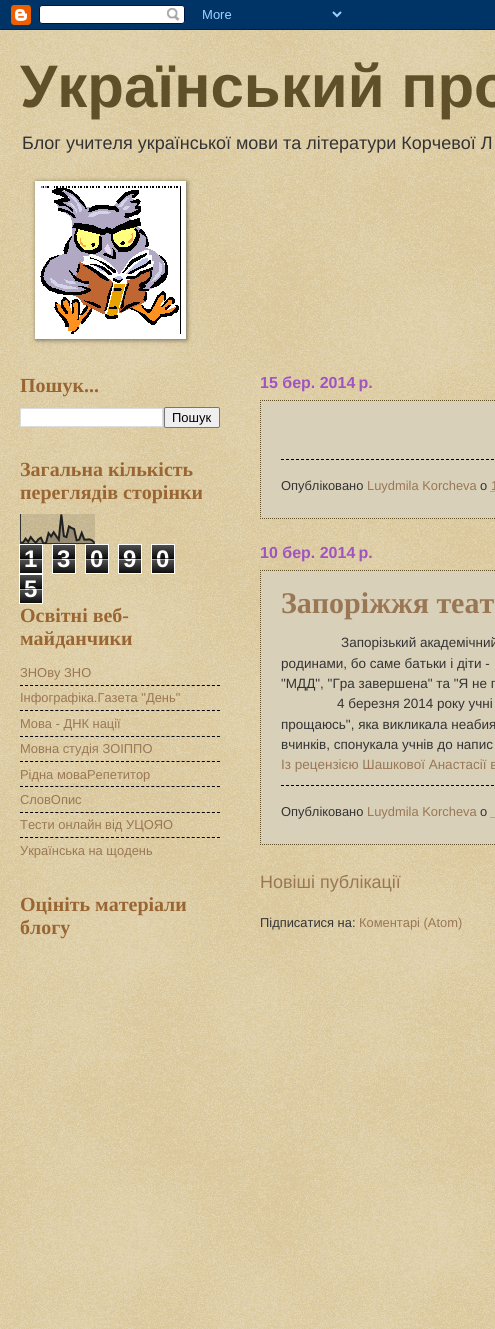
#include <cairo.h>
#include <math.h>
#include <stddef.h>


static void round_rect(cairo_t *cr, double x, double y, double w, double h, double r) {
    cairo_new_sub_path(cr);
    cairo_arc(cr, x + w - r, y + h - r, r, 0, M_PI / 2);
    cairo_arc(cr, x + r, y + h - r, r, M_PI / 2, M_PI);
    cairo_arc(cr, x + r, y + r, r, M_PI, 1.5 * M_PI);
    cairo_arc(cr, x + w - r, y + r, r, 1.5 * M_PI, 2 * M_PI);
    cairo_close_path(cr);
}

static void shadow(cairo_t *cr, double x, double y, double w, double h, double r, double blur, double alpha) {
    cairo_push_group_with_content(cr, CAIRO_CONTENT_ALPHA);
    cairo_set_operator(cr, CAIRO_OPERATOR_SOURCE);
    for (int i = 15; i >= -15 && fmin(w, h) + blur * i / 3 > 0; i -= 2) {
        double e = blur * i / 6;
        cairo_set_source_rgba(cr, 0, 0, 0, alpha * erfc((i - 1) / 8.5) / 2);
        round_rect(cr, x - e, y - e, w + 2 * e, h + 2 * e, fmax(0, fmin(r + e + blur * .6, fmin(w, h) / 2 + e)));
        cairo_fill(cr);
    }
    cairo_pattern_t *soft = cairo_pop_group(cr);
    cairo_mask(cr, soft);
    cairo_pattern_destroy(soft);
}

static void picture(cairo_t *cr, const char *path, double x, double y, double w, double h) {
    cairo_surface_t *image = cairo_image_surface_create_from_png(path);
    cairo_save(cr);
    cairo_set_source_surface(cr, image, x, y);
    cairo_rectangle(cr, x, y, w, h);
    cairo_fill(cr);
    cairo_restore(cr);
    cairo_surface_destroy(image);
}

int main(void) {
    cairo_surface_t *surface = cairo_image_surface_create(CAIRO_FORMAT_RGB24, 495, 1329);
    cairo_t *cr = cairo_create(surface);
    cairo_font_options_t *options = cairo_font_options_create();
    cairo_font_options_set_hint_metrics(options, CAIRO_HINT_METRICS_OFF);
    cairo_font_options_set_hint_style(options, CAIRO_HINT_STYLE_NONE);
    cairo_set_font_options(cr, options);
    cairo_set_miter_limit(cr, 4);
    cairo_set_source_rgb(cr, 0.753, 0.631, 0.329);
    cairo_paint(cr);
    picture(cr, "img1.png", 0, 0, 495, 30);
    picture(cr, "img2.png", 0, 30, 495, 1299);
    cairo_select_font_face(cr, "Liberation Sans", CAIRO_FONT_SLANT_NORMAL, CAIRO_FONT_WEIGHT_BOLD);
    cairo_set_font_size(cr, 60);
    cairo_set_source_rgb(cr, 0.376, 0.314, 0.165);
    cairo_move_to(cr, 20, 107);
    cairo_show_text(cr, "Український про");
    cairo_select_font_face(cr, "Liberation Sans", CAIRO_FONT_SLANT_NORMAL, CAIRO_FONT_WEIGHT_NORMAL);
    cairo_set_font_size(cr, 18);
    cairo_set_source_rgb(cr, 0.2, 0.2, 0.2);
    cairo_move_to(cr, 22, 149);
    cairo_show_text(cr, "Блог учителя української мови та літератури Корчевої Л");
    cairo_set_source_rgb(cr, 0, 0, 0);
    shadow(cr, 36, 182, 151, 158, 0, 2.5, 0.5);
    cairo_set_source_rgb(cr, 1, 1, 1);
    cairo_rectangle(cr, 35, 181, 151, 158);
    cairo_fill(cr);
    picture(cr, "img3.png", 40, 186, 141, 148);
    cairo_select_font_face(cr, "Liberation Serif", CAIRO_FONT_SLANT_NORMAL, CAIRO_FONT_WEIGHT_BOLD);
    cairo_set_font_size(cr, 20);
    cairo_set_source_rgb(cr, 0.6, 0.4, 0.2);
    cairo_move_to(cr, 20, 392);
    cairo_show_text(cr, "Пошук...");
    cairo_set_source_rgb(cr, 1, 1, 1);
    cairo_rectangle(cr, 20.5, 408.5, 142, 18);
    cairo_fill_preserve(cr);
    cairo_set_source_rgb(cr, 0.867, 0.867, 0.867);
    cairo_set_line_width(cr, 1);
    cairo_stroke(cr);
    cairo_set_source_rgb(cr, 0.937, 0.937, 0.937);
    round_rect(cr, 164.5, 407.5, 55, 20, 1.5);
    cairo_fill_preserve(cr);
    cairo_set_source_rgb(cr, 0.463, 0.463, 0.463);
    cairo_stroke(cr);
    cairo_select_font_face(cr, "Liberation Sans", CAIRO_FONT_SLANT_NORMAL, CAIRO_FONT_WEIGHT_NORMAL);
    cairo_set_font_size(cr, 13);
    cairo_set_source_rgb(cr, 0, 0, 0);
    cairo_move_to(cr, 172, 422);
    cairo_show_text(cr, "Пошук");
    cairo_select_font_face(cr, "Liberation Serif", CAIRO_FONT_SLANT_NORMAL, CAIRO_FONT_WEIGHT_BOLD);
    cairo_set_font_size(cr, 20);
    cairo_set_source_rgb(cr, 0.6, 0.4, 0.2);
    cairo_move_to(cr, 20, 476);
    cairo_show_text(cr, "Загальна кількість");
    cairo_move_to(cr, 20, 499);
    cairo_show_text(cr, "переглядів сторінки");
    picture(cr, "img4.png", 20, 514, 75, 30);
    picture(cr, "img5.png", 20, 545, 22, 28);
    cairo_rectangle(cr, 19.5, 544.5, 23, 29);
    cairo_set_source_rgb(cr, 1, 1, 1);
    cairo_stroke(cr);
    cairo_select_font_face(cr, "Liberation Sans", CAIRO_FONT_SLANT_NORMAL, CAIRO_FONT_WEIGHT_BOLD);
    cairo_set_font_size(cr, 24);
    cairo_move_to(cr, 24, 567);
    cairo_show_text(cr, "1");
    cairo_set_source_rgba(cr, 0, 0, 0, 0.65);
    cairo_rectangle(cr, 20, 558, 22, 1);
    cairo_fill(cr);
    cairo_set_source_rgba(cr, 1, 1, 1, 0.65);
    cairo_rectangle(cr, 20, 559, 22, 1);
    cairo_fill(cr);
    picture(cr, "img5.png", 53, 545, 22, 28);
    cairo_rectangle(cr, 52.5, 544.5, 23, 29);
    cairo_set_source_rgb(cr, 1, 1, 1);
    cairo_stroke(cr);
    cairo_move_to(cr, 57, 567);
    cairo_show_text(cr, "3");
    cairo_set_source_rgba(cr, 0, 0, 0, 0.65);
    cairo_rectangle(cr, 53, 558, 22, 1);
    cairo_fill(cr);
    cairo_set_source_rgba(cr, 1, 1, 1, 0.65);
    cairo_rectangle(cr, 53, 559, 22, 1);
    cairo_fill(cr);
    picture(cr, "img5.png", 86, 545, 22, 28);
    cairo_rectangle(cr, 85.5, 544.5, 23, 29);
    cairo_set_source_rgb(cr, 1, 1, 1);
    cairo_stroke(cr);
    cairo_move_to(cr, 90, 567);
    cairo_show_text(cr, "0");
    cairo_set_source_rgba(cr, 0, 0, 0, 0.65);
    cairo_rectangle(cr, 86, 558, 22, 1);
    cairo_fill(cr);
    cairo_set_source_rgba(cr, 1, 1, 1, 0.65);
    cairo_rectangle(cr, 86, 559, 22, 1);
    cairo_fill(cr);
    picture(cr, "img5.png", 119, 545, 22, 28);
    cairo_rectangle(cr, 118.5, 544.5, 23, 29);
    cairo_set_source_rgb(cr, 1, 1, 1);
    cairo_stroke(cr);
    cairo_move_to(cr, 123, 567);
    cairo_show_text(cr, "9");
    cairo_set_source_rgba(cr, 0, 0, 0, 0.65);
    cairo_rectangle(cr, 119, 558, 22, 1);
    cairo_fill(cr);
    cairo_set_source_rgba(cr, 1, 1, 1, 0.65);
    cairo_rectangle(cr, 119, 559, 22, 1);
    cairo_fill(cr);
    picture(cr, "img5.png", 152, 545, 22, 28);
    cairo_rectangle(cr, 151.5, 544.5, 23, 29);
    cairo_set_source_rgb(cr, 1, 1, 1);
    cairo_stroke(cr);
    cairo_move_to(cr, 156, 567);
    cairo_show_text(cr, "0");
    cairo_set_source_rgba(cr, 0, 0, 0, 0.65);
    cairo_rectangle(cr, 152, 558, 22, 1);
    cairo_fill(cr);
    cairo_set_source_rgba(cr, 1, 1, 1, 0.65);
    cairo_rectangle(cr, 152, 559, 22, 1);
    cairo_fill(cr);
    picture(cr, "img5.png", 20, 575, 22, 28);
    cairo_rectangle(cr, 19.5, 574.5, 23, 29);
    cairo_set_source_rgb(cr, 1, 1, 1);
    cairo_stroke(cr);
    cairo_move_to(cr, 24, 597);
    cairo_show_text(cr, "5");
    cairo_set_source_rgba(cr, 0, 0, 0, 0.65);
    cairo_rectangle(cr, 20, 588, 22, 1);
    cairo_fill(cr);
    cairo_set_source_rgba(cr, 1, 1, 1, 0.65);
    cairo_rectangle(cr, 20, 589, 22, 1);
    cairo_fill(cr);
    cairo_select_font_face(cr, "Liberation Serif", CAIRO_FONT_SLANT_NORMAL, CAIRO_FONT_WEIGHT_BOLD);
    cairo_set_font_size(cr, 20);
    cairo_set_source_rgb(cr, 0.6, 0.4, 0.2);
    cairo_move_to(cr, 20, 622);
    cairo_show_text(cr, "Освітні веб-");
    cairo_move_to(cr, 20, 645);
    cairo_show_text(cr, "майданчики");
    cairo_select_font_face(cr, "Liberation Sans", CAIRO_FONT_SLANT_NORMAL, CAIRO_FONT_WEIGHT_NORMAL);
    cairo_set_font_size(cr, 12.9);
    cairo_set_source_rgb(cr, 0.6, 0.467, 0.333);
    cairo_move_to(cr, 20, 677);
    cairo_show_text(cr, "ЗНОву ЗНО");
    cairo_new_path(cr);
    cairo_move_to(cr, 20, 685.5);
    cairo_line_to(cr, 220, 685.5);
    cairo_set_source_rgb(cr, 0, 0, 0);
    cairo_set_dash(cr, (double[]){3, 2.05}, 2, 0);
    cairo_stroke(cr);
    cairo_set_source_rgb(cr, 0.6, 0.467, 0.333);
    cairo_move_to(cr, 20, 702);
    cairo_show_text(cr, "Інфографіка.Газета \"День\"");
    cairo_new_path(cr);
    cairo_move_to(cr, 20, 710.5);
    cairo_line_to(cr, 220, 710.5);
    cairo_set_source_rgb(cr, 0, 0, 0);
    cairo_stroke(cr);
    cairo_set_source_rgb(cr, 0.6, 0.467, 0.333);
    cairo_move_to(cr, 20, 728);
    cairo_show_text(cr, "Мова - ДНК нації");
    cairo_new_path(cr);
    cairo_move_to(cr, 20, 736.5);
    cairo_line_to(cr, 220, 736.5);
    cairo_set_source_rgb(cr, 0, 0, 0);
    cairo_stroke(cr);
    cairo_set_source_rgb(cr, 0.6, 0.467, 0.333);
    cairo_move_to(cr, 20, 753);
    cairo_show_text(cr, "Мовна студія ЗОІППО");
    cairo_new_path(cr);
    cairo_move_to(cr, 20, 761.5);
    cairo_line_to(cr, 220, 761.5);
    cairo_set_source_rgb(cr, 0, 0, 0);
    cairo_stroke(cr);
    cairo_set_source_rgb(cr, 0.6, 0.467, 0.333);
    cairo_move_to(cr, 20, 779);
    cairo_show_text(cr, "Рідна моваРепетитор");
    cairo_new_path(cr);
    cairo_move_to(cr, 20, 786.5);
    cairo_line_to(cr, 220, 786.5);
    cairo_set_source_rgb(cr, 0, 0, 0);
    cairo_stroke(cr);
    cairo_set_source_rgb(cr, 0.6, 0.467, 0.333);
    cairo_move_to(cr, 20, 804);
    cairo_show_text(cr, "СловОпис");
    cairo_new_path(cr);
    cairo_move_to(cr, 20, 812.5);
    cairo_line_to(cr, 220, 812.5);
    cairo_set_source_rgb(cr, 0, 0, 0);
    cairo_stroke(cr);
    cairo_set_source_rgb(cr, 0.6, 0.467, 0.333);
    cairo_move_to(cr, 20, 829);
    cairo_show_text(cr, "Тести онлайн від УЦОЯО");
    cairo_new_path(cr);
    cairo_move_to(cr, 20, 837.5);
    cairo_line_to(cr, 220, 837.5);
    cairo_set_source_rgb(cr, 0, 0, 0);
    cairo_stroke(cr);
    cairo_set_source_rgb(cr, 0.6, 0.467, 0.333);
    cairo_move_to(cr, 20, 855);
    cairo_show_text(cr, "Українська на щодень");
    cairo_select_font_face(cr, "Liberation Serif", CAIRO_FONT_SLANT_NORMAL, CAIRO_FONT_WEIGHT_BOLD);
    cairo_set_font_size(cr, 20);
    cairo_set_source_rgb(cr, 0.6, 0.4, 0.2);
    cairo_move_to(cr, 20, 911);
    cairo_show_text(cr, "Оцініть матеріали");
    cairo_move_to(cr, 20, 934);
    cairo_show_text(cr, "блогу");
    cairo_select_font_face(cr, "Liberation Sans", CAIRO_FONT_SLANT_NORMAL, CAIRO_FONT_WEIGHT_BOLD);
    cairo_set_font_size(cr, 16);
    cairo_set_source_rgb(cr, 0.627, 0.329, 0.753);
    cairo_move_to(cr, 260, 388);
    cairo_show_text(cr, "15 бер. 2014 р.");
    cairo_set_source_rgb(cr, 0.851, 0.816, 0.725);
    cairo_rectangle(cr, 260, 400, 235, 119);
    cairo_fill(cr);
    cairo_new_path(cr);
    cairo_move_to(cr, 260, 400.5);
    cairo_line_to(cr, 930, 400.5);
    cairo_set_source_rgb(cr, 0.376, 0.314, 0.165);
    cairo_set_dash(cr, (double[]){1, 1}, 2, 0);
    cairo_stroke(cr);
    cairo_new_path(cr);
    cairo_move_to(cr, 260, 518.5);
    cairo_line_to(cr, 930, 518.5);
    cairo_stroke(cr);
    cairo_new_path(cr);
    cairo_move_to(cr, 260.5, 400);
    cairo_line_to(cr, 260.5, 519);
    cairo_stroke(cr);
    cairo_new_path(cr);
    cairo_move_to(cr, 281, 459.5);
    cairo_line_to(cr, 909, 459.5);
    cairo_set_source_rgb(cr, 0, 0, 0);
    cairo_set_dash(cr, (double[]){3, 2}, 2, 0);
    cairo_stroke(cr);
    cairo_select_font_face(cr, "Liberation Sans", CAIRO_FONT_SLANT_NORMAL, CAIRO_FONT_WEIGHT_NORMAL);
    cairo_set_font_size(cr, 12.9);
    cairo_set_source_rgb(cr, 0.2, 0.2, 0.2);
    cairo_move_to(cr, 281, 490);
    cairo_show_text(cr, "Опубліковано");
    cairo_set_source_rgb(cr, 0.6, 0.467, 0.333);
    cairo_move_to(cr, 367, 490);
    cairo_show_text(cr, "Luydmila Korcheva");
    cairo_set_source_rgb(cr, 0.2, 0.2, 0.2);
    cairo_move_to(cr, 480, 490);
    cairo_show_text(cr, "о");
    cairo_new_path(cr);
    cairo_move_to(cr, 490.5, 491.5);
    cairo_line_to(cr, 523, 491.5);
    cairo_set_source_rgb(cr, 0.6, 0.467, 0.333);
    cairo_set_dash(cr, (double[]){1, 1}, 2, 0);
    cairo_stroke(cr);
    cairo_move_to(cr, 491, 490);
    cairo_show_text(cr, "1");
    cairo_select_font_face(cr, "Liberation Sans", CAIRO_FONT_SLANT_NORMAL, CAIRO_FONT_WEIGHT_BOLD);
    cairo_set_font_size(cr, 16);
    cairo_set_source_rgb(cr, 0.627, 0.329, 0.753);
    cairo_move_to(cr, 260, 558);
    cairo_show_text(cr, "10 бер. 2014 р.");
    cairo_set_source_rgb(cr, 0.851, 0.816, 0.725);
    cairo_rectangle(cr, 260, 570, 235, 275);
    cairo_fill(cr);
    cairo_new_path(cr);
    cairo_move_to(cr, 260, 570.5);
    cairo_line_to(cr, 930, 570.5);
    cairo_set_source_rgb(cr, 0.376, 0.314, 0.165);
    cairo_stroke(cr);
    cairo_new_path(cr);
    cairo_move_to(cr, 260, 844.5);
    cairo_line_to(cr, 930, 844.5);
    cairo_stroke(cr);
    cairo_new_path(cr);
    cairo_move_to(cr, 260.5, 570);
    cairo_line_to(cr, 260.5, 845);
    cairo_stroke(cr);
    cairo_select_font_face(cr, "Liberation Serif", CAIRO_FONT_SLANT_NORMAL, CAIRO_FONT_WEIGHT_BOLD);
    cairo_set_font_size(cr, 30);
    cairo_set_source_rgb(cr, 0.6, 0.467, 0.333);
    cairo_move_to(cr, 281, 613);
    cairo_show_text(cr, "Запоріжжя теат");
    cairo_select_font_face(cr, "Liberation Sans", CAIRO_FONT_SLANT_NORMAL, CAIRO_FONT_WEIGHT_NORMAL);
    cairo_set_font_size(cr, 13.5);
    cairo_set_source_rgb(cr, 0.2, 0.2, 0.2);
    cairo_move_to(cr, 341, 647);
    cairo_show_text(cr, "Запорізький академічний");
    cairo_move_to(cr, 281, 668);
    cairo_show_text(cr, "родинами, бо саме батьки і діти -");
    cairo_move_to(cr, 281, 688);
    cairo_show_text(cr, "\"МДД\", \"Гра завершена\" та \"Я не п");
    cairo_move_to(cr, 337, 708);
    cairo_show_text(cr, "4 березня 2014 року учні");
    cairo_move_to(cr, 281, 729);
    cairo_show_text(cr, "прощаюсь\", яка викликала неабия");
    cairo_move_to(cr, 281, 749);
    cairo_show_text(cr, "вчинків, спонукала учнів до напис");
    cairo_set_source_rgb(cr, 0.6, 0.467, 0.333);
    cairo_move_to(cr, 281, 769);
    cairo_show_text(cr, "Із рецензією Шашкової Анастасії в");
    cairo_new_path(cr);
    cairo_move_to(cr, 281, 785.5);
    cairo_line_to(cr, 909, 785.5);
    cairo_set_source_rgb(cr, 0, 0, 0);
    cairo_set_dash(cr, (double[]){3, 2}, 2, 0);
    cairo_stroke(cr);
    cairo_set_font_size(cr, 12.9);
    cairo_set_source_rgb(cr, 0.2, 0.2, 0.2);
    cairo_move_to(cr, 281, 816);
    cairo_show_text(cr, "Опубліковано");
    cairo_set_source_rgb(cr, 0.6, 0.467, 0.333);
    cairo_move_to(cr, 367, 816);
    cairo_show_text(cr, "Luydmila Korcheva");
    cairo_set_source_rgb(cr, 0.2, 0.2, 0.2);
    cairo_move_to(cr, 480, 816);
    cairo_show_text(cr, "о");
    cairo_new_path(cr);
    cairo_move_to(cr, 490.5, 817.5);
    cairo_line_to(cr, 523, 817.5);
    cairo_set_source_rgb(cr, 0.6, 0.467, 0.333);
    cairo_set_dash(cr, (double[]){1, 1}, 2, 0);
    cairo_stroke(cr);
    cairo_set_font_size(cr, 18);
    cairo_move_to(cr, 260, 888);
    cairo_show_text(cr, "Новіші публікації");
    cairo_set_font_size(cr, 12.9);
    cairo_set_source_rgb(cr, 0.2, 0.2, 0.2);
    cairo_move_to(cr, 260, 927);
    cairo_show_text(cr, "Підписатися на:");
    cairo_set_source_rgb(cr, 0.6, 0.467, 0.333);
    cairo_move_to(cr, 359, 927);
    cairo_show_text(cr, "Коментарі (Atom)");
    cairo_surface_write_to_png(surface, "page.png");
    cairo_font_options_destroy(options);
    cairo_destroy(cr);
    cairo_surface_destroy(surface);
    return 0;
}
